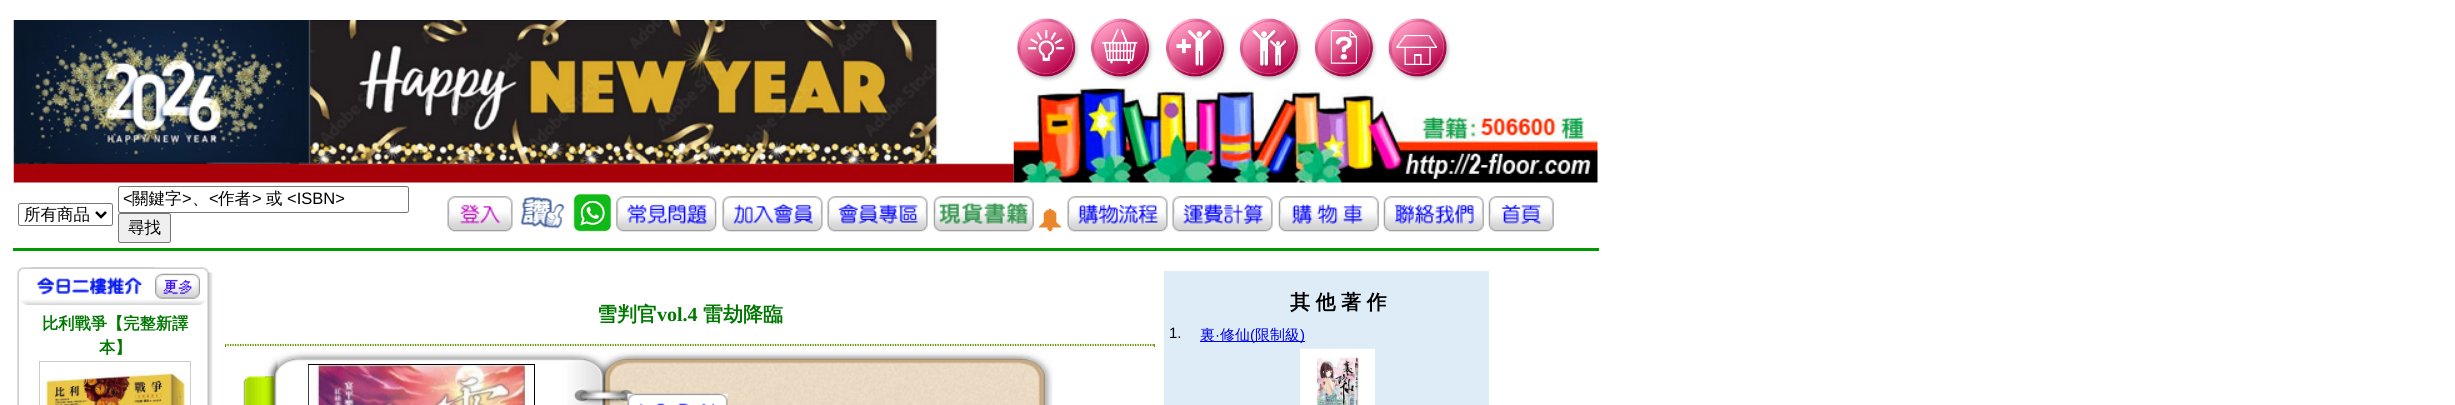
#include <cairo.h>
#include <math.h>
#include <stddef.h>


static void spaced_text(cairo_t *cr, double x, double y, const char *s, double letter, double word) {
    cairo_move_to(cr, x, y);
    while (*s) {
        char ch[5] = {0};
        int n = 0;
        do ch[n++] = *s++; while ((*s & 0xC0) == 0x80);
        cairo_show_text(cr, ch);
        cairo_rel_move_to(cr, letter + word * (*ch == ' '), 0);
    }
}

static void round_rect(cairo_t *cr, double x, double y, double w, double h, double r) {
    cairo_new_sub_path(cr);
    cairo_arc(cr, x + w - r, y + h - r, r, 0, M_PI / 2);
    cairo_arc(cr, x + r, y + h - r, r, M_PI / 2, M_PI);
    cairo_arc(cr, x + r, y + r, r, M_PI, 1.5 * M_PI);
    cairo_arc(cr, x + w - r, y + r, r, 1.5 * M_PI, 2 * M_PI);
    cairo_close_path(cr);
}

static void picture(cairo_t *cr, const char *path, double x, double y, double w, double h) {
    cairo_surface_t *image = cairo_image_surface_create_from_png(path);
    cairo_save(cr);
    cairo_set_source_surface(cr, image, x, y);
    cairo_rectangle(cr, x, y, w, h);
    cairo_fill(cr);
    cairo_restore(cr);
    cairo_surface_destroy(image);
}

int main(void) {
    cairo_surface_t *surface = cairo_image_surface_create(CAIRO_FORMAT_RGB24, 2455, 405);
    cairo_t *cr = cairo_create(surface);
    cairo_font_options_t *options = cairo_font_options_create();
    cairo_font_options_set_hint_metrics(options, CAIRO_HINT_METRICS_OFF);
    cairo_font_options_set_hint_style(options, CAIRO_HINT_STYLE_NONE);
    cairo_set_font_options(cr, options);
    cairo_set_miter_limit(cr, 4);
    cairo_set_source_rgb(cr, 1, 1, 1);
    cairo_paint(cr);
    picture(cr, "img1.png", 243, 351, 810, 54);
    cairo_set_source_rgb(cr, 0, 0.6, 0);
    cairo_rectangle(cr, 13, 248, 1586, 3);
    cairo_fill(cr);
    picture(cr, "img2.png", 13, 20, 1001, 163);
    picture(cr, "img3.png", 1017, 18, 63, 64);
    picture(cr, "img4.png", 1090, 18, 64, 64);
    picture(cr, "img5.png", 1165, 18, 64, 64);
    picture(cr, "img6.png", 1239, 18, 63, 64);
    picture(cr, "img7.png", 1314, 18, 63, 64);
    picture(cr, "img8.png", 1388, 18, 63, 64);
    picture(cr, "img9.png", 1013, 87, 585, 96);
    round_rect(cr, 18.5, 203.5, 94, 22, 2);
    cairo_set_source_rgb(cr, 0.463, 0.463, 0.463);
    cairo_set_line_width(cr, 1);
    cairo_stroke(cr);
    cairo_new_path(cr);
    cairo_move_to(cr, 96, 212);
    cairo_line_to(cr, 101, 217);
    cairo_line_to(cr, 106, 212);
    cairo_set_source_rgb(cr, 0, 0, 0);
    cairo_set_line_width(cr, 2.5);
    cairo_stroke(cr);
    cairo_select_font_face(cr, "WenQuanYi Zen Hei Medium", CAIRO_FONT_SLANT_NORMAL, CAIRO_FONT_WEIGHT_NORMAL);
    cairo_set_font_size(cr, 16.5);
    cairo_move_to(cr, 24, 220);
    cairo_show_text(cr, "所有商品");
    round_rect(cr, 118.5, 186.5, 290, 26, 2);
    cairo_set_source_rgb(cr, 0.463, 0.463, 0.463);
    cairo_set_line_width(cr, 1);
    cairo_stroke(cr);
    cairo_select_font_face(cr, "Liberation Sans", CAIRO_FONT_SLANT_NORMAL, CAIRO_FONT_WEIGHT_NORMAL);
    cairo_set_source_rgb(cr, 0, 0, 0);
    cairo_move_to(cr, 123, 204);
    cairo_show_text(cr, "<");
    cairo_select_font_face(cr, "WenQuanYi Zen Hei Medium", CAIRO_FONT_SLANT_NORMAL, CAIRO_FONT_WEIGHT_NORMAL);
    cairo_move_to(cr, 132, 204);
    cairo_show_text(cr, "關鍵字");
    cairo_select_font_face(cr, "Liberation Sans", CAIRO_FONT_SLANT_NORMAL, CAIRO_FONT_WEIGHT_NORMAL);
    cairo_move_to(cr, 182, 204);
    cairo_show_text(cr, ">");
    cairo_move_to(cr, 209, 204);
    cairo_show_text(cr, "<");
    cairo_select_font_face(cr, "WenQuanYi Zen Hei Medium", CAIRO_FONT_SLANT_NORMAL, CAIRO_FONT_WEIGHT_NORMAL);
    cairo_move_to(cr, 218, 204);
    cairo_show_text(cr, "作者");
    cairo_select_font_face(cr, "Liberation Sans", CAIRO_FONT_SLANT_NORMAL, CAIRO_FONT_WEIGHT_NORMAL);
    cairo_move_to(cr, 252, 204);
    cairo_show_text(cr, ">");
    cairo_select_font_face(cr, "WenQuanYi Zen Hei Medium", CAIRO_FONT_SLANT_NORMAL, CAIRO_FONT_WEIGHT_NORMAL);
    cairo_move_to(cr, 266, 204);
    cairo_show_text(cr, "或");
    cairo_select_font_face(cr, "Liberation Sans", CAIRO_FONT_SLANT_NORMAL, CAIRO_FONT_WEIGHT_NORMAL);
    cairo_move_to(cr, 287, 204);
    cairo_show_text(cr, "<ISBN>");
    cairo_select_font_face(cr, "WenQuanYi Zen Hei Medium", CAIRO_FONT_SLANT_NORMAL, CAIRO_FONT_WEIGHT_NORMAL);
    cairo_move_to(cr, 192, 204);
    cairo_show_text(cr, "、");
    cairo_set_source_rgb(cr, 0.937, 0.937, 0.937);
    round_rect(cr, 118.5, 213.5, 52, 29, 2);
    cairo_fill_preserve(cr);
    cairo_set_source_rgb(cr, 0.463, 0.463, 0.463);
    cairo_stroke(cr);
    cairo_set_source_rgb(cr, 0, 0, 0);
    cairo_move_to(cr, 128, 233);
    cairo_show_text(cr, "尋找");
    picture(cr, "img10.png", 447, 196, 66, 36);
    picture(cr, "img11.png", 520, 196, 45, 33);
    picture(cr, "img12.png", 573, 193, 39, 39);
    picture(cr, "img13.png", 616, 196, 101, 36);
    picture(cr, "img14.png", 722, 196, 101, 36);
    picture(cr, "img15.png", 827, 196, 101, 36);
    picture(cr, "img16.png", 933, 196, 101, 36);
    picture(cr, "img17.png", 1038, 208, 24, 24);
    picture(cr, "img18.png", 1067, 196, 101, 36);
    picture(cr, "img19.png", 1172, 196, 101, 36);
    picture(cr, "img20.png", 1278, 196, 101, 36);
    picture(cr, "img21.png", 1383, 196, 101, 36);
    picture(cr, "img22.png", 1488, 196, 66, 36);
    picture(cr, "img23.png", 17, 267, 196, 38);
    picture(cr, "img24.png", 31, 267, 124, 29);
    picture(cr, "img25.png", 155, 273, 45, 26);
    picture(cr, "img26.png", 17, 305, 196, 100);
    cairo_select_font_face(cr, "WenQuanYi Zen Hei", CAIRO_FONT_SLANT_NORMAL, CAIRO_FONT_WEIGHT_BOLD);
    cairo_set_font_size(cr, 16.25);
    cairo_set_source_rgb(cr, 0, 0.471, 0);
    cairo_move_to(cr, 42, 329);
    cairo_show_text(cr, "比利戰爭【完整新譯");
    cairo_move_to(cr, 99, 353);
    cairo_show_text(cr, "本】");
    cairo_rectangle(cr, 39.5, 361.5, 151, 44);
    cairo_set_source_rgb(cr, 0.8, 0.8, 0.8);
    cairo_stroke(cr);
    picture(cr, "img27.png", 41, 370, 149, 35);
    cairo_set_font_size(cr, 20);
    cairo_set_source_rgb(cr, 0, 0.471, 0);
    cairo_move_to(cr, 597, 321);
    cairo_show_text(cr, "雪判官");
    cairo_select_font_face(cr, "Liberation Serif", CAIRO_FONT_SLANT_NORMAL, CAIRO_FONT_WEIGHT_BOLD);
    cairo_move_to(cr, 657, 321);
    cairo_show_text(cr, "vol.4");
    cairo_select_font_face(cr, "WenQuanYi Zen Hei", CAIRO_FONT_SLANT_NORMAL, CAIRO_FONT_WEIGHT_BOLD);
    cairo_move_to(cr, 703, 321);
    cairo_show_text(cr, "雷劫降臨");
    cairo_new_path(cr);
    cairo_move_to(cr, 225, 344.5);
    cairo_line_to(cr, 1155, 344.5);
    cairo_set_source_rgb(cr, 0.4, 0.6, 0);
    cairo_set_line_width(cr, 1.2);
    cairo_set_dash(cr, (double[]){1.25, 1.25}, 2, 0);
    cairo_stroke(cr);
    cairo_rectangle(cr, 1154, 344, 1, 3);
    cairo_fill(cr);
    cairo_new_path(cr);
    cairo_move_to(cr, 225, 345.5);
    cairo_line_to(cr, 1155, 345.5);
    cairo_stroke(cr);
    cairo_rectangle(cr, 225, 344, 1, 3);
    cairo_fill(cr);
    cairo_rectangle(cr, 308.5, 364.5, 226, 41);
    cairo_set_source_rgb(cr, 0, 0, 0);
    cairo_set_line_width(cr, 1);
    cairo_set_dash(cr, NULL, 0, 0);
    cairo_stroke(cr);
    picture(cr, "img28.png", 308, 365, 222, 40);
    picture(cr, "img29.png", 627, 393, 101, 12);
    cairo_set_source_rgb(cr, 0.871, 0.922, 0.969);
    cairo_rectangle(cr, 1164, 271, 325, 134);
    cairo_fill(cr);
    cairo_set_source_rgb(cr, 0, 0, 0);
    spaced_text(cr, 1290, 309, "其 他 著 作", 0, -0.5);
    cairo_select_font_face(cr, "Liberation Sans", CAIRO_FONT_SLANT_NORMAL, CAIRO_FONT_WEIGHT_NORMAL);
    cairo_set_font_size(cr, 15);
    cairo_move_to(cr, 1169, 338);
    cairo_show_text(cr, "1.");
    cairo_set_source_rgb(cr, 0, 0, 0.933);
    cairo_rectangle(cr, 1200, 341, 105, 1);
    cairo_fill(cr);
    cairo_select_font_face(cr, "WenQuanYi Zen Hei Medium", CAIRO_FONT_SLANT_NORMAL, CAIRO_FONT_WEIGHT_NORMAL);
    cairo_move_to(cr, 1200, 340);
    cairo_show_text(cr, "裏");
    cairo_select_font_face(cr, "Liberation Sans", CAIRO_FONT_SLANT_NORMAL, CAIRO_FONT_WEIGHT_NORMAL);
    cairo_move_to(cr, 1215, 340);
    cairo_show_text(cr, "·");
    cairo_select_font_face(cr, "WenQuanYi Zen Hei Medium", CAIRO_FONT_SLANT_NORMAL, CAIRO_FONT_WEIGHT_NORMAL);
    cairo_move_to(cr, 1220, 340);
    cairo_show_text(cr, "修仙");
    cairo_select_font_face(cr, "Liberation Sans", CAIRO_FONT_SLANT_NORMAL, CAIRO_FONT_WEIGHT_NORMAL);
    cairo_move_to(cr, 1250, 340);
    cairo_show_text(cr, "(");
    cairo_select_font_face(cr, "WenQuanYi Zen Hei Medium", CAIRO_FONT_SLANT_NORMAL, CAIRO_FONT_WEIGHT_NORMAL);
    cairo_move_to(cr, 1255, 340);
    cairo_show_text(cr, "限制級");
    cairo_select_font_face(cr, "Liberation Sans", CAIRO_FONT_SLANT_NORMAL, CAIRO_FONT_WEIGHT_NORMAL);
    cairo_move_to(cr, 1300, 340);
    cairo_show_text(cr, ")");
    picture(cr, "img30.png", 1300, 348, 75, 57);
    cairo_surface_write_to_png(surface, "page.png");
    cairo_font_options_destroy(options);
    cairo_destroy(cr);
    cairo_surface_destroy(surface);
    return 0;
}
